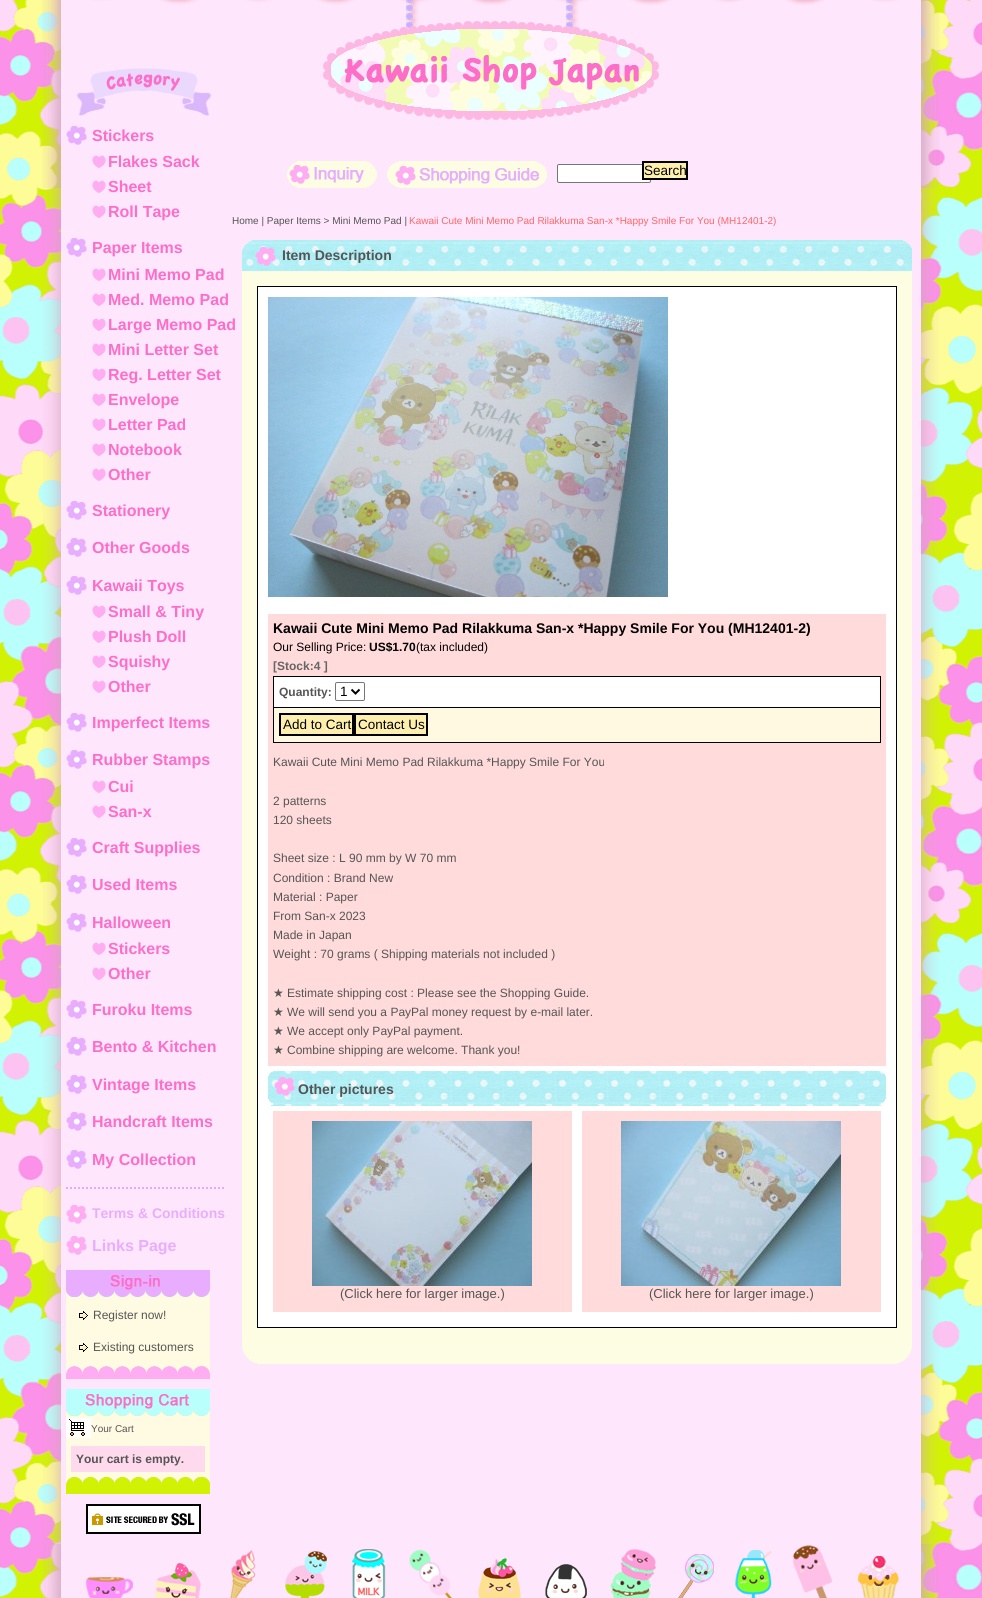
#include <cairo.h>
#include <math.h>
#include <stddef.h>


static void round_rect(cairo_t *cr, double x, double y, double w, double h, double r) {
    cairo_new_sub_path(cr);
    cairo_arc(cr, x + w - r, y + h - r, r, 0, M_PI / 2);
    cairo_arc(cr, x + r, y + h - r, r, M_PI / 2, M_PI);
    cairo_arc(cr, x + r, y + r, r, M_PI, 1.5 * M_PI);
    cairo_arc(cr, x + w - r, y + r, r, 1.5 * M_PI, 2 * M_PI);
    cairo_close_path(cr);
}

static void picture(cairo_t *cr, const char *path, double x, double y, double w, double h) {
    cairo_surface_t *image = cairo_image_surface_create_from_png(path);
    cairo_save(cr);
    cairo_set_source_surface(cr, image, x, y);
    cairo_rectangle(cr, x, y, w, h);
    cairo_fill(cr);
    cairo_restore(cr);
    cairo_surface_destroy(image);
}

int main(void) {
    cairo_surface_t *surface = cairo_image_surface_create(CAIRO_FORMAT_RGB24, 982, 1598);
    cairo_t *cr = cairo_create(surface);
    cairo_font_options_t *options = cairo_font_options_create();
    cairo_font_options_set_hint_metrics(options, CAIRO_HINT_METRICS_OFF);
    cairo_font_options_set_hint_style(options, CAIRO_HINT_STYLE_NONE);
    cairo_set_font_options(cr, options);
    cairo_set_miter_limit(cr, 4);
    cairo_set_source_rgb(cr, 1, 1, 1);
    cairo_paint(cr);
    picture(cr, "img1.png", 0, 0, 982, 1598);
    picture(cr, "img2.png", 42, 0, 898, 1598);
    picture(cr, "img22.png", 42, 0, 898, 188);
    picture(cr, "img3.png", 76, 68, 136, 48);
    cairo_new_path(cr);
    cairo_move_to(cr, 66, 1188);
    cairo_line_to(cr, 226, 1188);
    cairo_set_source_rgb(cr, 0.906, 0.663, 1);
    cairo_set_dash(cr, (double[]){2, 2}, 2, 0);
    cairo_stroke(cr);
    picture(cr, "img4.png", 66, 126, 21, 19);
    cairo_select_font_face(cr, "Liberation Sans", CAIRO_FONT_SLANT_NORMAL, CAIRO_FONT_WEIGHT_BOLD);
    cairo_set_font_size(cr, 16);
    cairo_set_source_rgb(cr, 0.992, 0.431, 0.788);
    cairo_move_to(cr, 92, 141);
    cairo_show_text(cr, "Stickers");
    picture(cr, "img5.png", 92, 155, 14, 13);
    cairo_move_to(cr, 108, 167);
    cairo_show_text(cr, "Flakes Sack");
    picture(cr, "img5.png", 92, 180, 14, 13);
    cairo_move_to(cr, 108, 192);
    cairo_show_text(cr, "Sheet");
    picture(cr, "img5.png", 92, 205, 14, 13);
    cairo_move_to(cr, 108, 217);
    cairo_show_text(cr, "Roll Tape");
    picture(cr, "img4.png", 66, 238, 21, 19);
    cairo_move_to(cr, 92, 253);
    cairo_show_text(cr, "Paper Items");
    picture(cr, "img5.png", 92, 268, 14, 13);
    cairo_move_to(cr, 108, 280);
    cairo_show_text(cr, "Mini Memo Pad");
    picture(cr, "img5.png", 92, 293, 14, 13);
    cairo_move_to(cr, 108, 305);
    cairo_show_text(cr, "Med. Memo Pad");
    picture(cr, "img5.png", 92, 318, 14, 13);
    cairo_move_to(cr, 108, 330);
    cairo_show_text(cr, "Large Memo Pad");
    picture(cr, "img5.png", 92, 343, 14, 13);
    cairo_move_to(cr, 108, 355);
    cairo_show_text(cr, "Mini Letter Set");
    picture(cr, "img5.png", 92, 368, 14, 13);
    cairo_move_to(cr, 108, 380);
    cairo_show_text(cr, "Reg. Letter Set");
    picture(cr, "img5.png", 92, 393, 14, 13);
    cairo_move_to(cr, 108, 405);
    cairo_show_text(cr, "Envelope");
    picture(cr, "img5.png", 92, 418, 14, 13);
    cairo_move_to(cr, 108, 430);
    cairo_show_text(cr, "Letter Pad");
    picture(cr, "img5.png", 92, 443, 14, 13);
    cairo_move_to(cr, 108, 455);
    cairo_show_text(cr, "Notebook");
    picture(cr, "img5.png", 92, 468, 14, 13);
    cairo_move_to(cr, 108, 480);
    cairo_show_text(cr, "Other");
    picture(cr, "img4.png", 66, 501, 21, 19);
    cairo_move_to(cr, 92, 516);
    cairo_show_text(cr, "Stationery");
    picture(cr, "img4.png", 66, 538, 21, 19);
    cairo_move_to(cr, 92, 553);
    cairo_show_text(cr, "Other Goods");
    picture(cr, "img4.png", 66, 576, 21, 19);
    cairo_move_to(cr, 92, 591);
    cairo_show_text(cr, "Kawaii Toys");
    picture(cr, "img5.png", 92, 605, 14, 13);
    cairo_move_to(cr, 108, 617);
    cairo_show_text(cr, "Small & Tiny");
    picture(cr, "img5.png", 92, 630, 14, 13);
    cairo_move_to(cr, 108, 642);
    cairo_show_text(cr, "Plush Doll");
    picture(cr, "img5.png", 92, 655, 14, 13);
    cairo_move_to(cr, 108, 667);
    cairo_show_text(cr, "Squishy");
    picture(cr, "img5.png", 92, 680, 14, 13);
    cairo_move_to(cr, 108, 692);
    cairo_show_text(cr, "Other");
    picture(cr, "img4.png", 66, 713, 21, 19);
    cairo_move_to(cr, 92, 728);
    cairo_show_text(cr, "Imperfect Items");
    picture(cr, "img4.png", 66, 750, 21, 19);
    cairo_move_to(cr, 92, 765);
    cairo_show_text(cr, "Rubber Stamps");
    picture(cr, "img5.png", 92, 780, 14, 13);
    cairo_move_to(cr, 108, 792);
    cairo_show_text(cr, "Cui");
    picture(cr, "img5.png", 92, 805, 14, 13);
    cairo_move_to(cr, 108, 817);
    cairo_show_text(cr, "San-x");
    picture(cr, "img4.png", 66, 838, 21, 19);
    cairo_move_to(cr, 92, 853);
    cairo_show_text(cr, "Craft Supplies");
    picture(cr, "img4.png", 66, 875, 21, 19);
    cairo_move_to(cr, 92, 890);
    cairo_show_text(cr, "Used Items");
    picture(cr, "img4.png", 66, 913, 21, 19);
    cairo_move_to(cr, 92, 928);
    cairo_show_text(cr, "Halloween");
    picture(cr, "img5.png", 92, 942, 14, 13);
    cairo_move_to(cr, 108, 954);
    cairo_show_text(cr, "Stickers");
    picture(cr, "img5.png", 92, 967, 14, 13);
    cairo_move_to(cr, 108, 979);
    cairo_show_text(cr, "Other");
    picture(cr, "img4.png", 66, 1000, 21, 19);
    cairo_move_to(cr, 92, 1015);
    cairo_show_text(cr, "Furoku Items");
    picture(cr, "img4.png", 66, 1037, 21, 19);
    cairo_move_to(cr, 92, 1052);
    cairo_show_text(cr, "Bento & Kitchen");
    picture(cr, "img4.png", 66, 1075, 21, 19);
    cairo_move_to(cr, 92, 1090);
    cairo_show_text(cr, "Vintage Items");
    picture(cr, "img4.png", 66, 1112, 21, 19);
    cairo_move_to(cr, 92, 1127);
    cairo_show_text(cr, "Handcraft Items");
    picture(cr, "img4.png", 66, 1150, 21, 19);
    cairo_move_to(cr, 92, 1165);
    cairo_show_text(cr, "My Collection");
    picture(cr, "img6.png", 66, 1205, 21, 19);
    cairo_set_font_size(cr, 14);
    cairo_set_source_rgb(cr, 0.91, 0.678, 1);
    cairo_move_to(cr, 92, 1218);
    cairo_show_text(cr, "Terms & Conditions");
    picture(cr, "img6.png", 66, 1236, 21, 19);
    cairo_set_font_size(cr, 16);
    cairo_move_to(cr, 92, 1251);
    cairo_show_text(cr, "Links Page");
    cairo_set_source_rgb(cr, 1, 0.984, 0.886);
    cairo_rectangle(cr, 66, 1297, 144, 69);
    cairo_fill(cr);
    picture(cr, "img7.png", 66, 1270, 144, 27);
    picture(cr, "img8.png", 66, 1366, 144, 13);
    picture(cr, "img9.png", 79, 1311, 9, 9);
    cairo_select_font_face(cr, "Liberation Sans", CAIRO_FONT_SLANT_NORMAL, CAIRO_FONT_WEIGHT_NORMAL);
    cairo_set_font_size(cr, 12);
    cairo_set_source_rgb(cr, 0.333, 0.333, 0.333);
    cairo_move_to(cr, 93, 1319);
    cairo_show_text(cr, "Register now!");
    picture(cr, "img9.png", 79, 1343, 9, 9);
    cairo_move_to(cr, 93, 1351);
    cairo_show_text(cr, "Existing customers");
    cairo_set_source_rgb(cr, 1, 0.984, 0.886);
    cairo_rectangle(cr, 66, 1416, 144, 61);
    cairo_fill(cr);
    picture(cr, "img10.png", 66, 1389, 144, 27);
    picture(cr, "img11.png", 66, 1477, 144, 17);
    picture(cr, "img12.png", 66, 1418, 25, 20);
    cairo_set_font_size(cr, 10);
    cairo_set_source_rgb(cr, 0.333, 0.333, 0.333);
    cairo_move_to(cr, 91, 1432);
    cairo_show_text(cr, "Your Cart");
    cairo_set_source_rgb(cr, 1, 0.851, 0.929);
    cairo_rectangle(cr, 71, 1446, 134, 26);
    cairo_fill(cr);
    cairo_select_font_face(cr, "Liberation Sans", CAIRO_FONT_SLANT_NORMAL, CAIRO_FONT_WEIGHT_BOLD);
    cairo_set_font_size(cr, 12);
    cairo_set_source_rgb(cr, 0.333, 0.333, 0.333);
    cairo_move_to(cr, 76, 1463);
    cairo_show_text(cr, "Your cart is empty.");
    picture(cr, "img13.png", 86, 1504, 115, 30);
    cairo_select_font_face(cr, "Liberation Sans", CAIRO_FONT_SLANT_NORMAL, CAIRO_FONT_WEIGHT_NORMAL);
    cairo_set_font_size(cr, 10);
    cairo_move_to(cr, 232, 224);
    cairo_show_text(cr, "Home | Paper Items > Mini Memo Pad |");
    cairo_set_source_rgb(cr, 1, 0.4, 0.4);
    cairo_move_to(cr, 409, 224);
    cairo_show_text(cr, "Kawaii Cute Mini Memo Pad Rilakkuma San-x *Happy Smile For You (MH12401-2)");
    picture(cr, "img14.png", 242, 240, 670, 31);
    cairo_select_font_face(cr, "Liberation Sans", CAIRO_FONT_SLANT_NORMAL, CAIRO_FONT_WEIGHT_BOLD);
    cairo_set_font_size(cr, 14);
    cairo_set_source_rgb(cr, 0.333, 0.333, 0.333);
    cairo_move_to(cr, 282, 260);
    cairo_show_text(cr, "Item Description");
    cairo_set_source_rgb(cr, 0.992, 0.992, 0.894);
    cairo_rectangle(cr, 242, 271, 670, 1062);
    cairo_fill(cr);
    cairo_set_source_rgb(cr, 1, 1, 1);
    cairo_rectangle(cr, 257.5, 286.5, 639, 1041);
    cairo_fill_preserve(cr);
    cairo_set_source_rgb(cr, 0, 0, 0);
    cairo_set_line_width(cr, 1);
    cairo_set_dash(cr, NULL, 0, 0);
    cairo_stroke(cr);
    picture(cr, "img15.png", 268, 297, 400, 300);
    cairo_set_source_rgb(cr, 1, 0.859, 0.859);
    cairo_rectangle(cr, 268, 614, 618, 452);
    cairo_fill(cr);
    cairo_set_source_rgb(cr, 0, 0, 0);
    cairo_move_to(cr, 273, 633);
    cairo_show_text(cr, "Kawaii Cute Mini Memo Pad Rilakkuma San-x *Happy Smile For You (MH12401-2)");
    cairo_select_font_face(cr, "Liberation Sans", CAIRO_FONT_SLANT_NORMAL, CAIRO_FONT_WEIGHT_NORMAL);
    cairo_set_font_size(cr, 12);
    cairo_move_to(cr, 273, 651);
    cairo_show_text(cr, "Our Selling Price:");
    cairo_select_font_face(cr, "Liberation Sans", CAIRO_FONT_SLANT_NORMAL, CAIRO_FONT_WEIGHT_BOLD);
    cairo_move_to(cr, 369, 651);
    cairo_show_text(cr, "US$1.70");
    cairo_select_font_face(cr, "Liberation Sans", CAIRO_FONT_SLANT_NORMAL, CAIRO_FONT_WEIGHT_NORMAL);
    cairo_move_to(cr, 416, 651);
    cairo_show_text(cr, "(tax included)");
    cairo_select_font_face(cr, "Liberation Sans", CAIRO_FONT_SLANT_NORMAL, CAIRO_FONT_WEIGHT_BOLD);
    cairo_set_source_rgb(cr, 0.4, 0.4, 0.4);
    cairo_move_to(cr, 273, 670);
    cairo_show_text(cr, "[Stock:4 ]");
    cairo_set_source_rgb(cr, 1, 1, 1);
    cairo_rectangle(cr, 274, 677, 606, 30);
    cairo_fill(cr);
    cairo_set_source_rgb(cr, 0, 0, 0);
    cairo_rectangle(cr, 273, 676, 608, 1);
    cairo_fill(cr);
    cairo_rectangle(cr, 880, 676, 1, 31);
    cairo_fill(cr);
    cairo_rectangle(cr, 273, 676, 1, 31);
    cairo_fill(cr);
    cairo_set_source_rgb(cr, 0.333, 0.333, 0.333);
    cairo_move_to(cr, 279, 696);
    cairo_show_text(cr, "Quantity:");
    round_rect(cr, 335.5, 682.5, 29, 18, 1.5);
    cairo_set_source_rgb(cr, 0.463, 0.463, 0.463);
    cairo_stroke(cr);
    cairo_new_path(cr);
    cairo_move_to(cr, 351.5, 689.5);
    cairo_line_to(cr, 355.5, 693.5);
    cairo_line_to(cr, 359.5, 689.5);
    cairo_set_source_rgb(cr, 0, 0, 0);
    cairo_set_line_width(cr, 2);
    cairo_stroke(cr);
    cairo_select_font_face(cr, "Liberation Sans", CAIRO_FONT_SLANT_NORMAL, CAIRO_FONT_WEIGHT_NORMAL);
    cairo_set_font_size(cr, 13.5);
    cairo_move_to(cr, 340, 696);
    cairo_show_text(cr, "1");
    cairo_set_source_rgb(cr, 1, 0.976, 0.882);
    cairo_rectangle(cr, 273.5, 707.5, 607, 35);
    cairo_fill_preserve(cr);
    cairo_set_source_rgb(cr, 0, 0, 0);
    cairo_set_line_width(cr, 1);
    cairo_stroke(cr);
    picture(cr, "img16.png", 281, 715, 71, 19);
    cairo_rectangle(cr, 280, 714, 73, 21);
    cairo_set_line_width(cr, 2);
    cairo_stroke(cr);
    cairo_move_to(cr, 283, 729);
    cairo_show_text(cr, "Add to Cart");
    picture(cr, "img17.png", 356, 715, 70, 19);
    cairo_rectangle(cr, 355, 714, 72, 21);
    cairo_stroke(cr);
    cairo_move_to(cr, 358, 729);
    cairo_show_text(cr, "Contact Us");
    cairo_set_font_size(cr, 12);
    cairo_set_source_rgb(cr, 0.333, 0.333, 0.333);
    cairo_move_to(cr, 273, 766);
    cairo_show_text(cr, "Kawaii Cute Mini Memo Pad Rilakkuma *Happy Smile For You");
    cairo_move_to(cr, 273, 805);
    cairo_show_text(cr, "2 patterns");
    cairo_move_to(cr, 273, 824);
    cairo_show_text(cr, "120 sheets");
    cairo_move_to(cr, 273, 862);
    cairo_show_text(cr, "Sheet size : L 90 mm by W 70 mm");
    cairo_move_to(cr, 273, 882);
    cairo_show_text(cr, "Condition : Brand New");
    cairo_move_to(cr, 273, 901);
    cairo_show_text(cr, "Material : Paper");
    cairo_move_to(cr, 273, 920);
    cairo_show_text(cr, "From San-x 2023");
    cairo_move_to(cr, 273, 939);
    cairo_show_text(cr, "Made in Japan");
    cairo_move_to(cr, 273, 958);
    cairo_show_text(cr, "Weight : 70 grams ( Shipping materials not included )");
    cairo_select_font_face(cr, "DejaVu Sans", CAIRO_FONT_SLANT_NORMAL, CAIRO_FONT_WEIGHT_NORMAL);
    cairo_move_to(cr, 273, 997);
    cairo_show_text(cr, "★");
    cairo_select_font_face(cr, "Liberation Sans", CAIRO_FONT_SLANT_NORMAL, CAIRO_FONT_WEIGHT_NORMAL);
    cairo_move_to(cr, 287, 997);
    cairo_show_text(cr, "Estimate shipping cost : Please see the Shopping Guide.");
    cairo_select_font_face(cr, "DejaVu Sans", CAIRO_FONT_SLANT_NORMAL, CAIRO_FONT_WEIGHT_NORMAL);
    cairo_move_to(cr, 273, 1016);
    cairo_show_text(cr, "★");
    cairo_select_font_face(cr, "Liberation Sans", CAIRO_FONT_SLANT_NORMAL, CAIRO_FONT_WEIGHT_NORMAL);
    cairo_move_to(cr, 287, 1016);
    cairo_show_text(cr, "We will send you a PayPal money request by e-mail later.");
    cairo_select_font_face(cr, "DejaVu Sans", CAIRO_FONT_SLANT_NORMAL, CAIRO_FONT_WEIGHT_NORMAL);
    cairo_move_to(cr, 273, 1035);
    cairo_show_text(cr, "★");
    cairo_select_font_face(cr, "Liberation Sans", CAIRO_FONT_SLANT_NORMAL, CAIRO_FONT_WEIGHT_NORMAL);
    cairo_move_to(cr, 287, 1035);
    cairo_show_text(cr, "We accept only PayPal payment.");
    cairo_select_font_face(cr, "DejaVu Sans", CAIRO_FONT_SLANT_NORMAL, CAIRO_FONT_WEIGHT_NORMAL);
    cairo_move_to(cr, 273, 1054);
    cairo_show_text(cr, "★");
    cairo_select_font_face(cr, "Liberation Sans", CAIRO_FONT_SLANT_NORMAL, CAIRO_FONT_WEIGHT_NORMAL);
    cairo_move_to(cr, 287, 1054);
    cairo_show_text(cr, "Combine shipping are welcome. Thank you!");
    picture(cr, "img18.png", 268, 1071, 618, 35);
    cairo_select_font_face(cr, "Liberation Sans", CAIRO_FONT_SLANT_NORMAL, CAIRO_FONT_WEIGHT_BOLD);
    cairo_set_font_size(cr, 14);
    cairo_move_to(cr, 298, 1094);
    cairo_show_text(cr, "Other pictures");
    cairo_set_source_rgb(cr, 1, 0.859, 0.859);
    cairo_rectangle(cr, 273, 1111, 299, 201);
    cairo_fill(cr);
    picture(cr, "img19.png", 312, 1121, 220, 165);
    cairo_select_font_face(cr, "Liberation Sans", CAIRO_FONT_SLANT_NORMAL, CAIRO_FONT_WEIGHT_NORMAL);
    cairo_set_font_size(cr, 13);
    cairo_set_source_rgb(cr, 0.333, 0.333, 0.333);
    cairo_move_to(cr, 340, 1298);
    cairo_show_text(cr, "(Click here for larger image.)");
    cairo_set_source_rgb(cr, 1, 0.859, 0.859);
    cairo_rectangle(cr, 582, 1111, 299, 201);
    cairo_fill(cr);
    picture(cr, "img20.png", 621, 1121, 220, 165);
    cairo_set_source_rgb(cr, 0.333, 0.333, 0.333);
    cairo_move_to(cr, 649, 1298);
    cairo_show_text(cr, "(Click here for larger image.)");
    picture(cr, "img21.png", 242, 1333, 670, 31);
    picture(cr, "img23.png", 323, 21, 336, 99);
    picture(cr, "img24.png", 287, 161, 90, 27);
    picture(cr, "img25.png", 387, 161, 160, 27);
    cairo_set_source_rgb(cr, 1, 1, 1);
    round_rect(cr, 557.5, 164.5, 93, 18, 1.5);
    cairo_fill_preserve(cr);
    cairo_set_source_rgb(cr, 0.463, 0.463, 0.463);
    cairo_set_line_width(cr, 1);
    cairo_stroke(cr);
    picture(cr, "img26.png", 644, 163, 42, 15);
    cairo_rectangle(cr, 643, 162, 44, 17);
    cairo_set_source_rgb(cr, 0, 0, 0);
    cairo_set_line_width(cr, 2);
    cairo_stroke(cr);
    cairo_set_font_size(cr, 13.5);
    cairo_move_to(cr, 644, 175);
    cairo_show_text(cr, "Search");
    picture(cr, "img27.png", 42, 1544, 895, 54);
    cairo_surface_write_to_png(surface, "page.png");
    cairo_font_options_destroy(options);
    cairo_destroy(cr);
    cairo_surface_destroy(surface);
    return 0;
}
